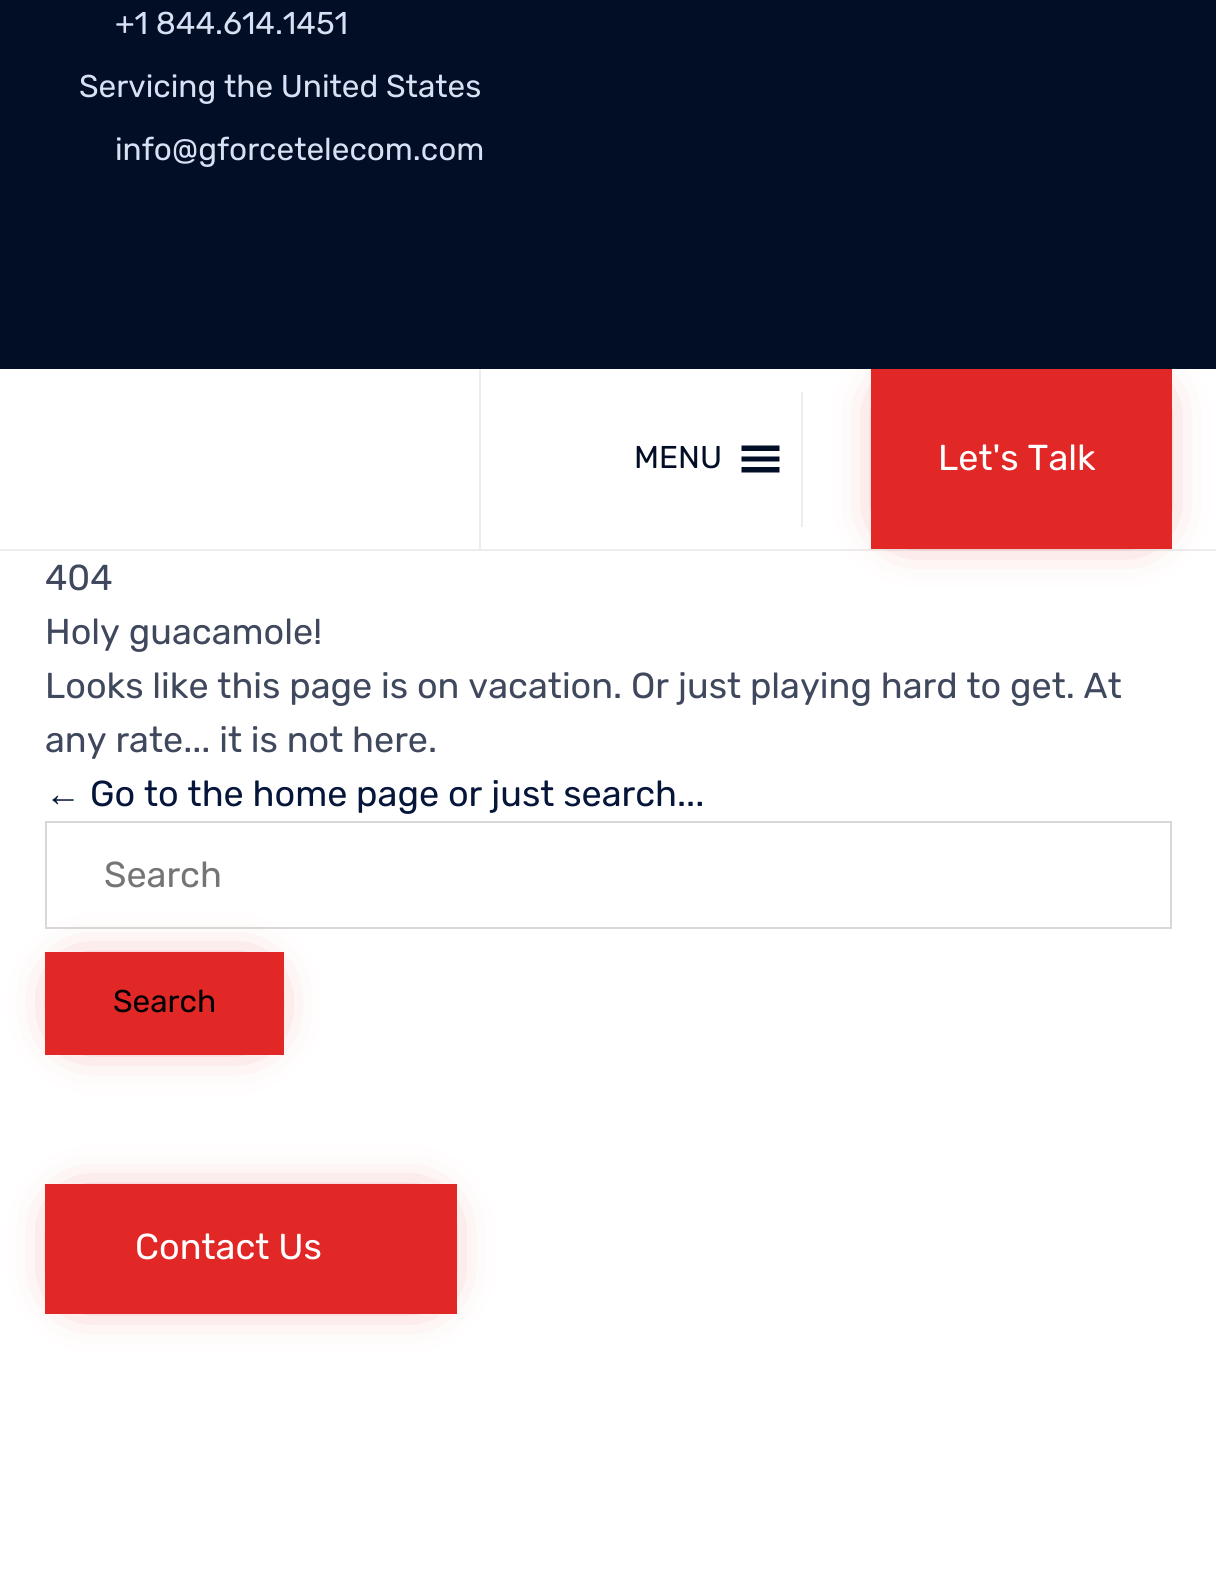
#include <cairo.h>
#include <math.h>
#include <stddef.h>


static void round_rect(cairo_t *cr, double x, double y, double w, double h, double r) {
    cairo_new_sub_path(cr);
    cairo_arc(cr, x + w - r, y + h - r, r, 0, M_PI / 2);
    cairo_arc(cr, x + r, y + h - r, r, M_PI / 2, M_PI);
    cairo_arc(cr, x + r, y + r, r, M_PI, 1.5 * M_PI);
    cairo_arc(cr, x + w - r, y + r, r, 1.5 * M_PI, 2 * M_PI);
    cairo_close_path(cr);
}

static void shadow(cairo_t *cr, double x, double y, double w, double h, double r, double blur, double alpha) {
    cairo_push_group_with_content(cr, CAIRO_CONTENT_ALPHA);
    cairo_set_operator(cr, CAIRO_OPERATOR_SOURCE);
    for (int i = 15; i >= -15 && fmin(w, h) + blur * i / 3 > 0; i -= 2) {
        double e = blur * i / 6;
        cairo_set_source_rgba(cr, 0, 0, 0, alpha * erfc((i - 1) / 8.5) / 2);
        round_rect(cr, x - e, y - e, w + 2 * e, h + 2 * e, fmax(0, fmin(r + e + blur * .6, fmin(w, h) / 2 + e)));
        cairo_fill(cr);
    }
    cairo_pattern_t *soft = cairo_pop_group(cr);
    cairo_mask(cr, soft);
    cairo_pattern_destroy(soft);
}

int main(void) {
    cairo_surface_t *surface = cairo_image_surface_create(CAIRO_FORMAT_RGB24, 1216, 1596);
    cairo_t *cr = cairo_create(surface);
    cairo_font_options_t *options = cairo_font_options_create();
    cairo_font_options_set_hint_metrics(options, CAIRO_HINT_METRICS_OFF);
    cairo_font_options_set_hint_style(options, CAIRO_HINT_STYLE_NONE);
    cairo_set_font_options(cr, options);
    cairo_set_miter_limit(cr, 4);
    cairo_set_source_rgb(cr, 1, 1, 1);
    cairo_paint(cr);
    cairo_set_source_rgb(cr, 0.929, 0.929, 0.929);
    cairo_rectangle(cr, 0, 549, 1216, 2);
    cairo_fill(cr);
    cairo_set_source_rgb(cr, 0.886, 0.153, 0.153);
    shadow(cr, 902, 401, 239, 117, 0, 28, 1);
    cairo_set_source_rgb(cr, 0.008, 0.051, 0.149);
    cairo_rectangle(cr, 0, 0, 1216, 369);
    cairo_fill(cr);
    cairo_select_font_face(cr, "Rubik", CAIRO_FONT_SLANT_NORMAL, CAIRO_FONT_WEIGHT_NORMAL);
    cairo_set_font_size(cr, 31.5);
    cairo_set_source_rgb(cr, 0.847, 0.878, 0.953);
    cairo_move_to(cr, 115, 34);
    cairo_show_text(cr, "+1 844.614.1451");
    cairo_move_to(cr, 79, 97);
    cairo_show_text(cr, "Servicing the United States");
    cairo_move_to(cr, 115, 160);
    cairo_show_text(cr, "info@gforcetelecom.com");
    cairo_set_source_rgb(cr, 0.929, 0.929, 0.929);
    cairo_rectangle(cr, 479, 369, 2, 180);
    cairo_fill(cr);
    cairo_rectangle(cr, 801, 392, 2, 135);
    cairo_fill(cr);
    cairo_set_source_rgb(cr, 0.008, 0.051, 0.149);
    cairo_move_to(cr, 634, 468);
    cairo_show_text(cr, "MENU");
    cairo_new_path(cr);
    cairo_move_to(cr, 741.5, 472.5);
    cairo_line_to(cr, 779.5, 472.5);
    cairo_line_to(cr, 779.5, 467);
    cairo_line_to(cr, 741.5, 467);
    cairo_close_path(cr);
    cairo_move_to(cr, 741.5, 445.5);
    cairo_line_to(cr, 741.5, 451);
    cairo_line_to(cr, 779.5, 451);
    cairo_line_to(cr, 779.5, 445.5);
    cairo_close_path(cr);
    cairo_move_to(cr, 741.5, 461.5);
    cairo_line_to(cr, 779.5, 461.5);
    cairo_line_to(cr, 779.5, 456.5);
    cairo_line_to(cr, 741.5, 456.5);
    cairo_close_path(cr);
    cairo_fill(cr);
    cairo_set_source_rgb(cr, 0.886, 0.153, 0.153);
    cairo_rectangle(cr, 871, 369, 301, 180);
    cairo_fill(cr);
    cairo_set_font_size(cr, 36);
    cairo_set_source_rgb(cr, 1, 1, 1);
    cairo_move_to(cr, 938, 470);
    cairo_show_text(cr, "Let's Talk");
    cairo_set_source_rgb(cr, 0.247, 0.282, 0.365);
    cairo_move_to(cr, 45, 590);
    cairo_show_text(cr, "404");
    cairo_move_to(cr, 45, 644);
    cairo_show_text(cr, "Holy guacamole!");
    cairo_move_to(cr, 45, 698);
    cairo_show_text(cr, "Looks like this page is on vacation. Or just playing hard to get. At");
    cairo_move_to(cr, 45, 752);
    cairo_show_text(cr, "any rate... it is not here.");
    cairo_select_font_face(cr, "Liberation Serif", CAIRO_FONT_SLANT_NORMAL, CAIRO_FONT_WEIGHT_NORMAL);
    cairo_set_source_rgb(cr, 0.024, 0.086, 0.227);
    cairo_move_to(cr, 45, 806);
    cairo_show_text(cr, "←");
    cairo_select_font_face(cr, "Rubik", CAIRO_FONT_SLANT_NORMAL, CAIRO_FONT_WEIGHT_NORMAL);
    cairo_move_to(cr, 90, 806);
    cairo_show_text(cr, "Go to the home page or just search...");
    cairo_rectangle(cr, 46, 822, 1125, 106);
    cairo_set_source_rgb(cr, 0.847, 0.847, 0.847);
    cairo_stroke(cr);
    cairo_set_source_rgb(cr, 0.459, 0.459, 0.459);
    cairo_move_to(cr, 104, 887);
    cairo_show_text(cr, "Search");
    cairo_set_source_rgb(cr, 0.886, 0.153, 0.153);
    shadow(cr, 77, 983, 175, 41, 0, 28, 1);
    cairo_set_source_rgb(cr, 0.886, 0.153, 0.153);
    cairo_rectangle(cr, 45, 952, 239, 103);
    cairo_fill(cr);
    cairo_set_font_size(cr, 31.5);
    cairo_set_source_rgb(cr, 0, 0, 0);
    cairo_move_to(cr, 113, 1012);
    cairo_show_text(cr, "Search");
    cairo_set_source_rgb(cr, 0.886, 0.153, 0.153);
    shadow(cr, 77, 1215, 348, 68, 0, 28, 1);
    cairo_set_source_rgb(cr, 0.886, 0.153, 0.153);
    cairo_rectangle(cr, 45, 1184, 412, 130);
    cairo_fill(cr);
    cairo_set_font_size(cr, 36);
    cairo_set_source_rgb(cr, 1, 1, 1);
    cairo_move_to(cr, 135, 1259);
    cairo_show_text(cr, "Contact Us");
    cairo_surface_write_to_png(surface, "page.png");
    cairo_font_options_destroy(options);
    cairo_destroy(cr);
    cairo_surface_destroy(surface);
    return 0;
}
